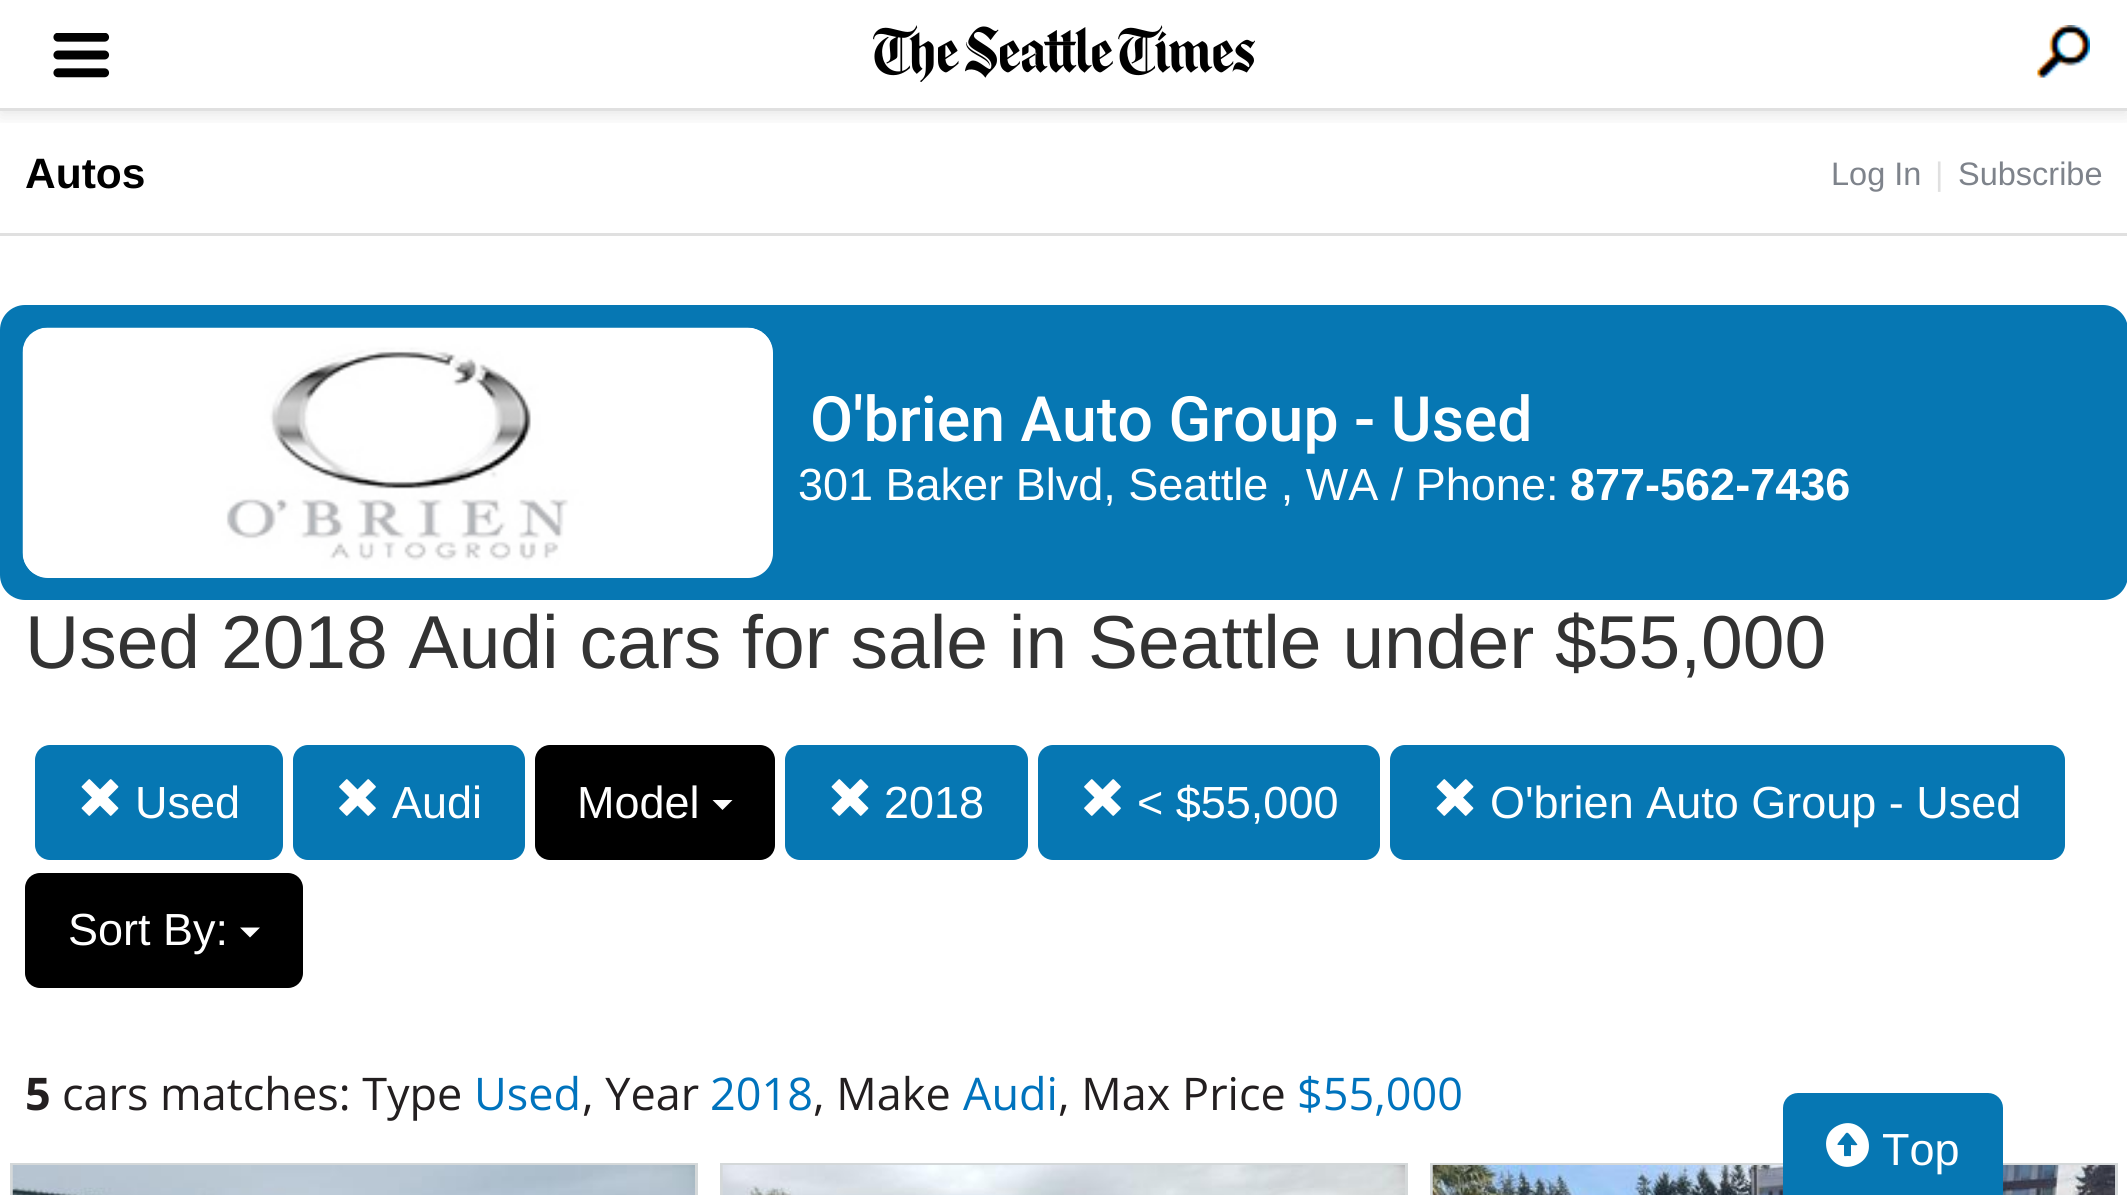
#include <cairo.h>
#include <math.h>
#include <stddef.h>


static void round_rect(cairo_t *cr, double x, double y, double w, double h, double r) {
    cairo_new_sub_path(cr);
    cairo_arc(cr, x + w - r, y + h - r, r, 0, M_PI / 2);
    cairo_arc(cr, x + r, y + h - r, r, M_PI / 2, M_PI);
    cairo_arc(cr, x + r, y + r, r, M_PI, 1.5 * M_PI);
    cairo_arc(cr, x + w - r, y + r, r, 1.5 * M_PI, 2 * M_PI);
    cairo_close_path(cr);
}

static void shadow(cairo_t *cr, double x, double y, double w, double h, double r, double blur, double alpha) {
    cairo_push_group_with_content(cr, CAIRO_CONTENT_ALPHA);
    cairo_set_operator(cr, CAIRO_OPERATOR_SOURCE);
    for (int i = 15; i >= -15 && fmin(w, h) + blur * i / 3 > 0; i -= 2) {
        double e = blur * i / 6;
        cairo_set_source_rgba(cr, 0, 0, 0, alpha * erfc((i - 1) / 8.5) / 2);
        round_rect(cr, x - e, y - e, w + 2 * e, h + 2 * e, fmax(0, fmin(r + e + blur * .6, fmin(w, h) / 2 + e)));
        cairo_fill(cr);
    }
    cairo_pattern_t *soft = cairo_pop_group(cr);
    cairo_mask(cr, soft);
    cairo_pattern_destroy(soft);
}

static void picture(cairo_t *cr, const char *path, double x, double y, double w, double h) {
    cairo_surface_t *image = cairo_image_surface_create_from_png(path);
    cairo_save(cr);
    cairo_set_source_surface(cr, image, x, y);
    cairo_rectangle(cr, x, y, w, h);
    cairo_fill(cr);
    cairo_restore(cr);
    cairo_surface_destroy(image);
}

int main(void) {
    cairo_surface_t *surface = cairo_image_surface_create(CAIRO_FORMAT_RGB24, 2127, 1195);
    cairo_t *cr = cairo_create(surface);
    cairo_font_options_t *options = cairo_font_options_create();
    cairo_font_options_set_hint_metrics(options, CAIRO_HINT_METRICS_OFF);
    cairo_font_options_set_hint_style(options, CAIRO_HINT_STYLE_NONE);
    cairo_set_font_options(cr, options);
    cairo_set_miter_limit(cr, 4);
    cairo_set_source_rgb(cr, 1, 1, 1);
    cairo_paint(cr);
    cairo_save(cr);
    cairo_rectangle(cr, 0, 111, 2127, 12);
    cairo_clip(cr);
    cairo_set_source_rgb(cr, 0, 0, 0);
    shadow(cr, 0, 5, 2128, 110, 0, 9, 0.1);
    cairo_restore(cr);
    cairo_set_source_rgb(cr, 0.878, 0.878, 0.878);
    cairo_rectangle(cr, 0, 108, 2127, 3);
    cairo_fill(cr);
    picture(cr, "img1.png", 53, 33, 57, 45);
    picture(cr, "img2.png", 873, 25, 382, 57);
    picture(cr, "img3.png", 2037, 25, 53, 53);
    cairo_rectangle(cr, 0, 233, 2127, 3);
    cairo_fill(cr);
    cairo_select_font_face(cr, "Liberation Sans", CAIRO_FONT_SLANT_NORMAL, CAIRO_FONT_WEIGHT_BOLD);
    cairo_set_font_size(cr, 42.5);
    cairo_set_source_rgb(cr, 0, 0, 0);
    cairo_move_to(cr, 25, 188);
    cairo_show_text(cr, "Autos");
    cairo_select_font_face(cr, "Liberation Sans", CAIRO_FONT_SLANT_NORMAL, CAIRO_FONT_WEIGHT_NORMAL);
    cairo_set_font_size(cr, 32.5);
    cairo_set_source_rgb(cr, 0.494, 0.514, 0.545);
    cairo_move_to(cr, 1831, 185);
    cairo_show_text(cr, "Log In");
    cairo_set_source_rgb(cr, 0.878, 0.878, 0.878);
    cairo_move_to(cr, 1935, 185);
    cairo_show_text(cr, "|");
    cairo_set_source_rgb(cr, 0.494, 0.514, 0.545);
    cairo_move_to(cr, 1958, 185);
    cairo_show_text(cr, "Subscribe");
    cairo_set_source_rgb(cr, 0.027, 0.467, 0.702);
    round_rect(cr, 0, 305, 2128, 295, 25);
    cairo_fill(cr);
    cairo_set_source_rgb(cr, 1, 1, 1);
    round_rect(cr, 23, 328, 750, 250, 25);
    cairo_fill(cr);
    picture(cr, "img4.png", 22, 327, 751, 251);
    cairo_select_font_face(cr, "Roboto Medium", CAIRO_FONT_SLANT_NORMAL, CAIRO_FONT_WEIGHT_NORMAL);
    cairo_set_font_size(cr, 62.5);
    cairo_move_to(cr, 810, 441);
    cairo_show_text(cr, "O'brien Auto Group - Used");
    cairo_select_font_face(cr, "Liberation Sans", CAIRO_FONT_SLANT_NORMAL, CAIRO_FONT_WEIGHT_NORMAL);
    cairo_set_font_size(cr, 45);
    cairo_move_to(cr, 798, 500);
    cairo_show_text(cr, "301 Baker Blvd, Seattle , WA / Phone:");
    cairo_select_font_face(cr, "Liberation Sans", CAIRO_FONT_SLANT_NORMAL, CAIRO_FONT_WEIGHT_BOLD);
    cairo_move_to(cr, 1570, 500);
    cairo_show_text(cr, "877-562-7436");
    cairo_select_font_face(cr, "Liberation Sans", CAIRO_FONT_SLANT_NORMAL, CAIRO_FONT_WEIGHT_NORMAL);
    cairo_set_font_size(cr, 75);
    cairo_set_source_rgb(cr, 0.2, 0.2, 0.2);
    cairo_move_to(cr, 25, 668);
    cairo_show_text(cr, "Used 2018 Audi cars for sale in Seattle under $55,000");
    cairo_set_source_rgb(cr, 0.027, 0.467, 0.702);
    round_rect(cr, 35, 745, 248, 115, 15);
    cairo_fill(cr);
    picture(cr, "img5.png", 81, 779, 38, 37);
    cairo_set_font_size(cr, 45);
    cairo_set_source_rgb(cr, 1, 1, 1);
    cairo_move_to(cr, 135, 818);
    cairo_show_text(cr, "Used");
    cairo_set_source_rgb(cr, 0.027, 0.467, 0.702);
    round_rect(cr, 293, 745, 232, 115, 15);
    cairo_fill(cr);
    picture(cr, "img6.png", 339, 779, 37, 37);
    cairo_set_source_rgb(cr, 1, 1, 1);
    cairo_move_to(cr, 392, 818);
    cairo_show_text(cr, "Audi");
    cairo_set_source_rgb(cr, 0, 0, 0);
    round_rect(cr, 535, 745, 240, 115, 15);
    cairo_fill(cr);
    cairo_set_source_rgb(cr, 1, 1, 1);
    cairo_move_to(cr, 577, 818);
    cairo_show_text(cr, "Model");
    cairo_new_path(cr);
    cairo_move_to(cr, 712.5, 800);
    cairo_line_to(cr, 732.5, 800);
    cairo_line_to(cr, 722.5, 810);
    cairo_close_path(cr);
    cairo_fill(cr);
    cairo_set_source_rgb(cr, 0.027, 0.467, 0.702);
    round_rect(cr, 785, 745, 243, 115, 15);
    cairo_fill(cr);
    picture(cr, "img5.png", 831, 779, 38, 37);
    cairo_set_source_rgb(cr, 1, 1, 1);
    cairo_move_to(cr, 884, 818);
    cairo_show_text(cr, "2018");
    cairo_set_source_rgb(cr, 0.027, 0.467, 0.702);
    round_rect(cr, 1038, 745, 342, 115, 15);
    cairo_fill(cr);
    picture(cr, "img6.png", 1084, 779, 37, 37);
    cairo_set_source_rgb(cr, 1, 1, 1);
    cairo_move_to(cr, 1137, 818);
    cairo_show_text(cr, "< $55,000");
    cairo_set_source_rgb(cr, 0.027, 0.467, 0.702);
    round_rect(cr, 1390, 745, 675, 115, 15);
    cairo_fill(cr);
    picture(cr, "img5.png", 1436, 779, 38, 37);
    cairo_set_source_rgb(cr, 1, 1, 1);
    cairo_move_to(cr, 1490, 818);
    cairo_show_text(cr, "O'brien Auto Group - Used");
    cairo_set_source_rgb(cr, 0, 0, 0);
    round_rect(cr, 25, 873, 278, 115, 15);
    cairo_fill(cr);
    cairo_set_source_rgb(cr, 1, 1, 1);
    cairo_move_to(cr, 68, 945);
    cairo_show_text(cr, "Sort By:");
    cairo_new_path(cr);
    cairo_move_to(cr, 240, 927.5);
    cairo_line_to(cr, 260, 927.5);
    cairo_line_to(cr, 250, 937.5);
    cairo_close_path(cr);
    cairo_fill(cr);
    cairo_select_font_face(cr, "Open Sans", CAIRO_FONT_SLANT_NORMAL, CAIRO_FONT_WEIGHT_BOLD);
    cairo_set_source_rgb(cr, 0.137, 0.122, 0.125);
    cairo_move_to(cr, 25, 1110);
    cairo_show_text(cr, "5");
    cairo_select_font_face(cr, "Open Sans", CAIRO_FONT_SLANT_NORMAL, CAIRO_FONT_WEIGHT_NORMAL);
    cairo_move_to(cr, 62, 1110);
    cairo_show_text(cr, "cars matches: Type");
    cairo_set_source_rgb(cr, 0, 0.451, 0.741);
    cairo_move_to(cr, 474, 1110);
    cairo_show_text(cr, "Used");
    cairo_set_source_rgb(cr, 0.137, 0.122, 0.125);
    cairo_move_to(cr, 582, 1110);
    cairo_show_text(cr, ", Year");
    cairo_set_source_rgb(cr, 0, 0.451, 0.741);
    cairo_move_to(cr, 710, 1110);
    cairo_show_text(cr, "2018");
    cairo_set_source_rgb(cr, 0.137, 0.122, 0.125);
    cairo_move_to(cr, 813, 1110);
    cairo_show_text(cr, ", Make");
    cairo_set_source_rgb(cr, 0, 0.451, 0.741);
    cairo_move_to(cr, 963, 1110);
    cairo_show_text(cr, "Audi");
    cairo_set_source_rgb(cr, 0.137, 0.122, 0.125);
    cairo_move_to(cr, 1058, 1110);
    cairo_show_text(cr, ", Max Price");
    cairo_set_source_rgb(cr, 0, 0.451, 0.741);
    cairo_move_to(cr, 1297, 1110);
    cairo_show_text(cr, "$55,000");
    cairo_rectangle(cr, 11.5, 1164.5, 685, 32);
    cairo_set_source_rgb(cr, 0.831, 0.847, 0.851);
    cairo_set_line_width(cr, 3);
    cairo_stroke(cr);
    picture(cr, "img7.png", 12, 1165, 683, 30);
    cairo_rectangle(cr, 721.5, 1164.5, 685, 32);
    cairo_stroke(cr);
    picture(cr, "img8.png", 722, 1165, 683, 30);
    cairo_rectangle(cr, 1431.5, 1164.5, 685, 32);
    cairo_stroke(cr);
    picture(cr, "img9.png", 1432, 1165, 683, 30);
    cairo_set_source_rgb(cr, 0.027, 0.467, 0.702);
    round_rect(cr, 1784.5, 1094.5, 217, 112, 13.5);
    cairo_fill_preserve(cr);
    cairo_stroke(cr);
    cairo_set_source_rgb(cr, 1, 1, 1);
    cairo_new_path(cr);
    cairo_move_to(cr, 1839, 1125);
    cairo_curve_to(cr, 1865, 1114, 1882, 1154, 1856, 1165);
    cairo_curve_to(cr, 1830, 1176, 1813, 1136, 1839, 1125);
    cairo_close_path(cr);
    cairo_move_to(cr, 1857, 1144);
    cairo_line_to(cr, 1850, 1135);
    cairo_curve_to(cr, 1846, 1130, 1846, 1134, 1842, 1138);
    cairo_curve_to(cr, 1836, 1146, 1835, 1145, 1844, 1145);
    cairo_line_to(cr, 1844, 1154);
    cairo_curve_to(cr, 1844, 1157, 1844, 1156, 1848, 1156);
    cairo_curve_to(cr, 1851, 1156, 1851, 1157, 1851, 1154);
    cairo_line_to(cr, 1851, 1145);
    cairo_curve_to(cr, 1852, 1145, 1859, 1146, 1857, 1144);
    cairo_close_path(cr);
    cairo_fill(cr);
    cairo_select_font_face(cr, "Liberation Sans", CAIRO_FONT_SLANT_NORMAL, CAIRO_FONT_WEIGHT_NORMAL);
    cairo_move_to(cr, 1882, 1165);
    cairo_show_text(cr, "Top");
    cairo_surface_write_to_png(surface, "page.png");
    cairo_font_options_destroy(options);
    cairo_destroy(cr);
    cairo_surface_destroy(surface);
    return 0;
}
